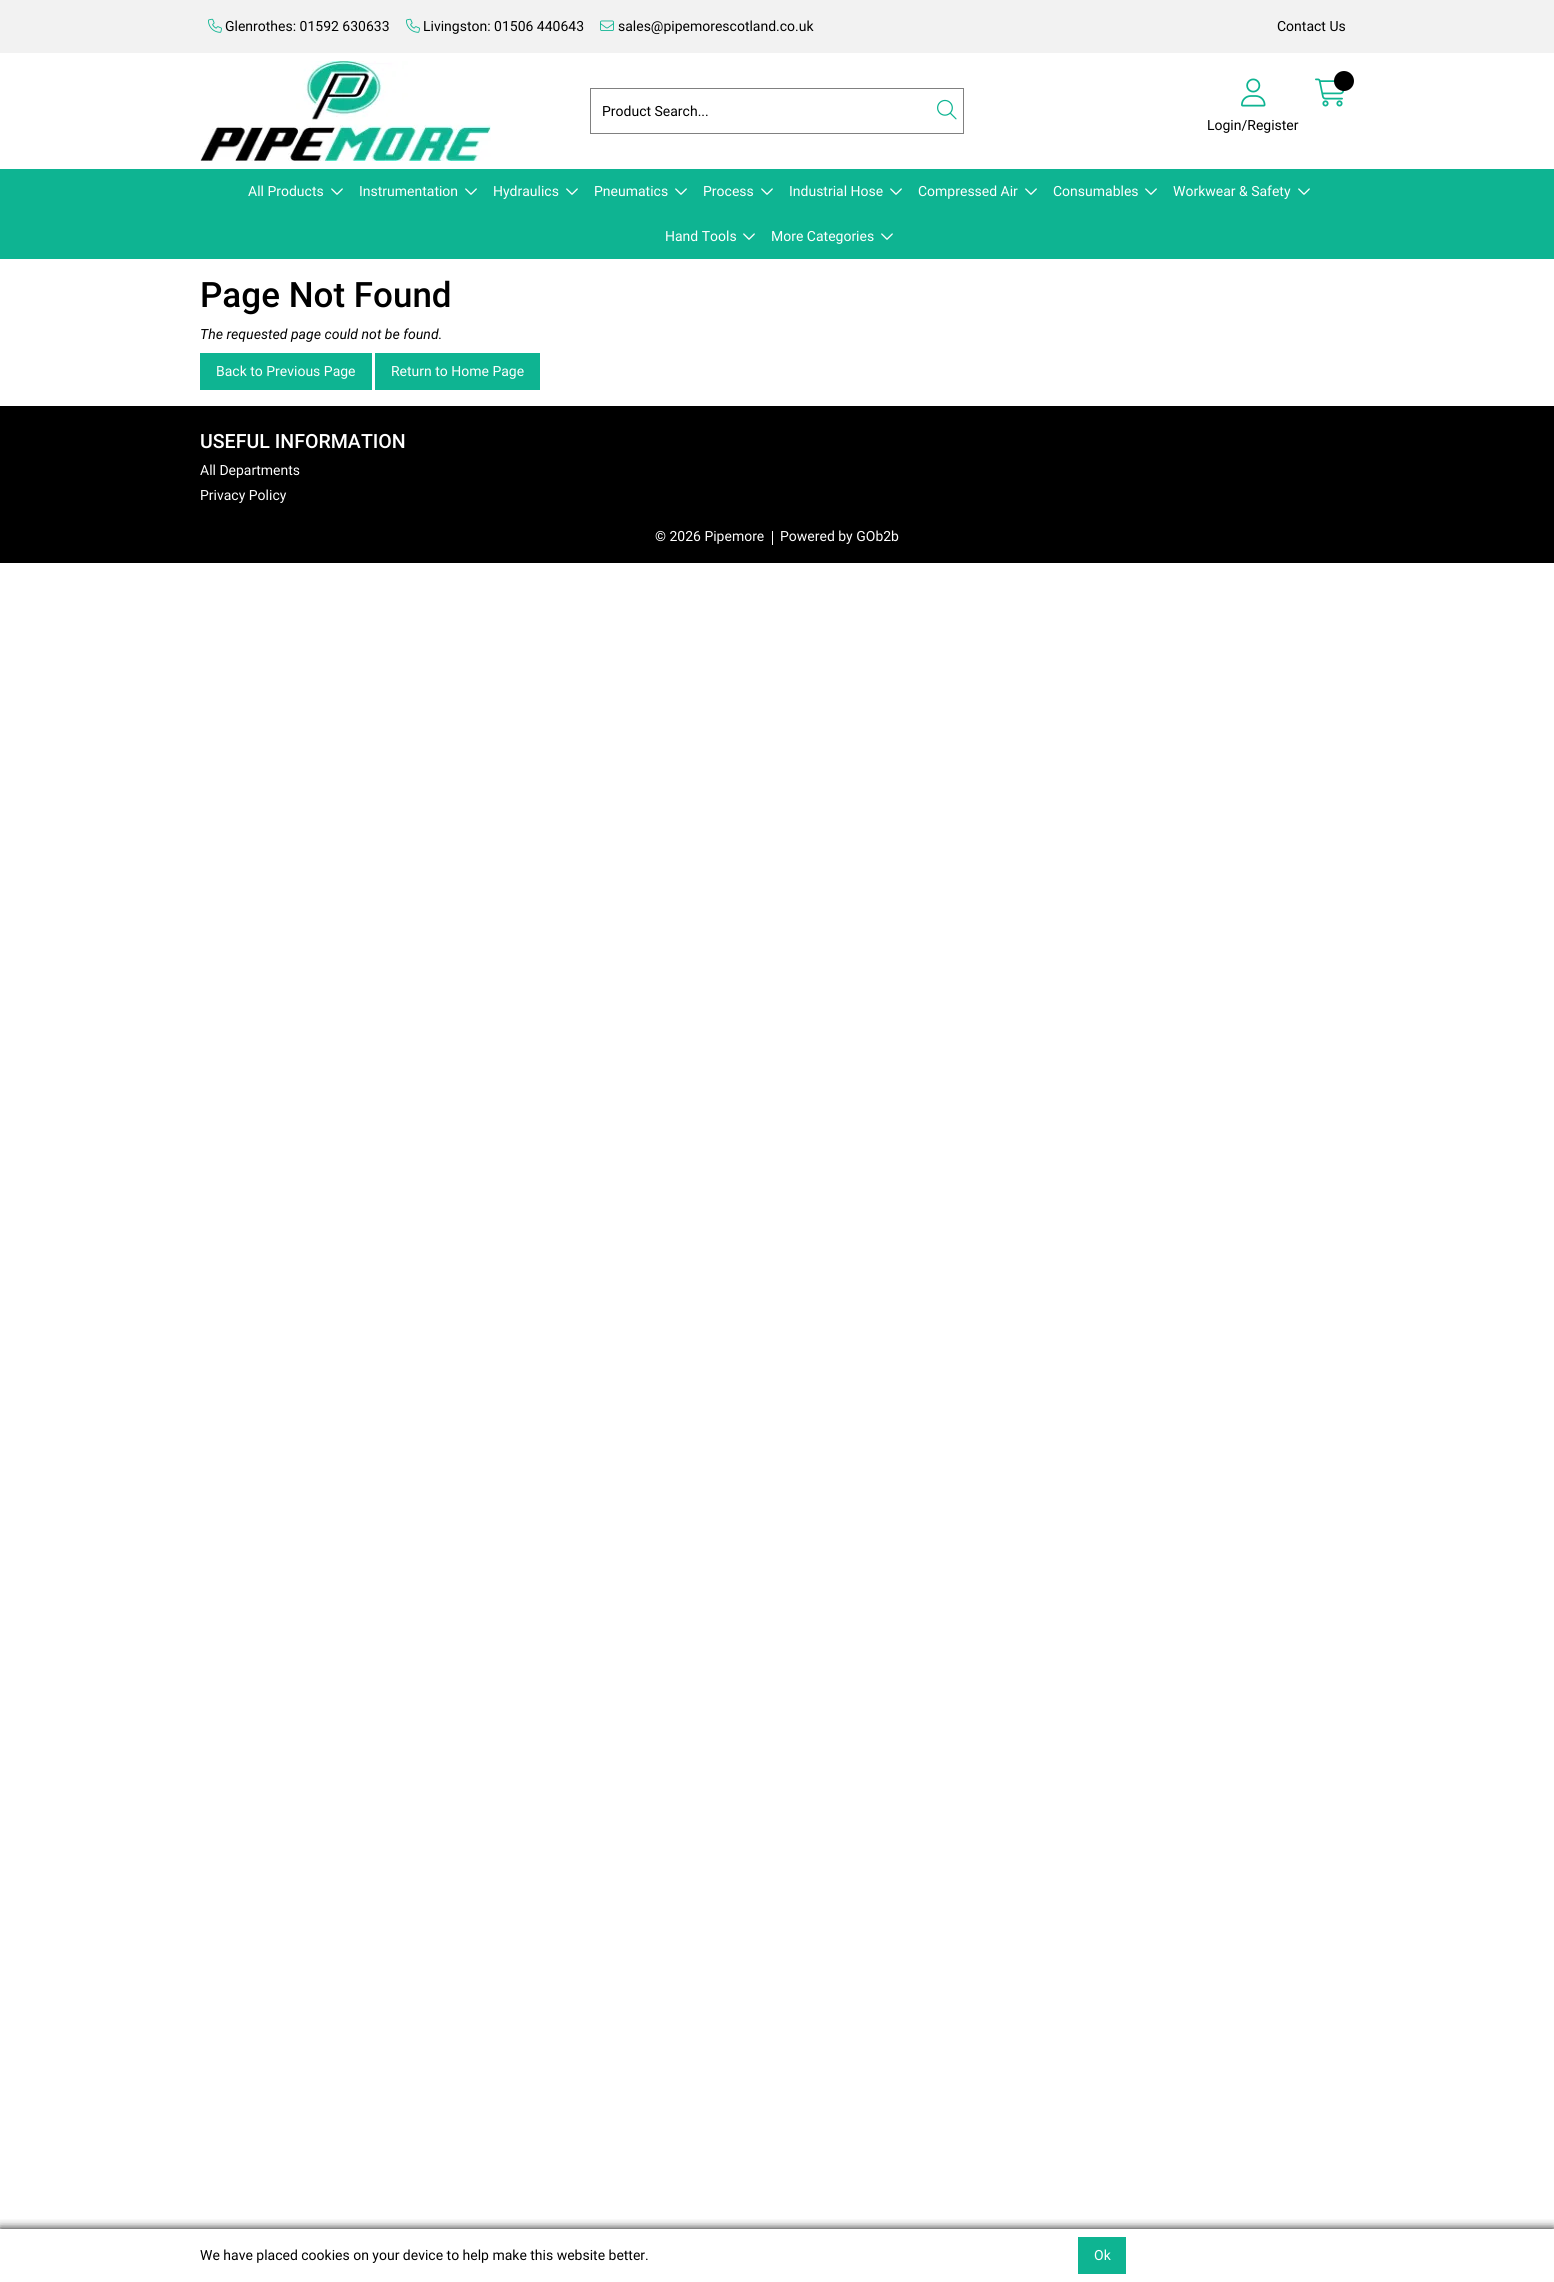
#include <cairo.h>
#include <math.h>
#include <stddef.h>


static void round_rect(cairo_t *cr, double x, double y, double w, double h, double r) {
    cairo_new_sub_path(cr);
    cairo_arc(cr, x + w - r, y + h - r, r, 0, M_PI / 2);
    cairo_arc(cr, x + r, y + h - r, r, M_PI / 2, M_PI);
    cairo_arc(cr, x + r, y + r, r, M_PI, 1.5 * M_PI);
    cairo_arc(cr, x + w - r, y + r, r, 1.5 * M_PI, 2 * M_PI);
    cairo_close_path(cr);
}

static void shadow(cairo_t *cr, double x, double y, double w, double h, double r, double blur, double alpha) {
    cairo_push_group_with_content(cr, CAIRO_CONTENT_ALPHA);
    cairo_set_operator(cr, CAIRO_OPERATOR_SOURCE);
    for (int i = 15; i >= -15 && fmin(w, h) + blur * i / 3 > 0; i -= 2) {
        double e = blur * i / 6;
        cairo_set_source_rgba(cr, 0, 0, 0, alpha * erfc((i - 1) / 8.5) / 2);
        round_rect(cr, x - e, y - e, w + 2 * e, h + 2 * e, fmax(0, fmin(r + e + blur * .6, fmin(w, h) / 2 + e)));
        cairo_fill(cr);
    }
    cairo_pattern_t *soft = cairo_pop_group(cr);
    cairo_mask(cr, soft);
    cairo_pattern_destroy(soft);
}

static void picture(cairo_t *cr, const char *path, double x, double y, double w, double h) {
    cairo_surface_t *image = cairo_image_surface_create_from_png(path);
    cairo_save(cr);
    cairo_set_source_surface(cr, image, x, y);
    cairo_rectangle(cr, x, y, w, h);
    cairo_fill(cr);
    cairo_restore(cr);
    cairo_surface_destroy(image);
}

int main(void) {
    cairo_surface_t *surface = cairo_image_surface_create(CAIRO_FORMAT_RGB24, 1554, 2282);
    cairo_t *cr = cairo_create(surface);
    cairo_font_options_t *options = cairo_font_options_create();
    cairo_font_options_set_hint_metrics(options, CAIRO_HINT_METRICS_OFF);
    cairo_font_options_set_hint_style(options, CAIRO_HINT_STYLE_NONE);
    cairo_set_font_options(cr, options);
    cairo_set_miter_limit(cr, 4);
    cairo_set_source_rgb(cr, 1, 1, 1);
    cairo_paint(cr);
    cairo_set_source_rgb(cr, 0.949, 0.949, 0.949);
    cairo_rectangle(cr, 0, 0, 1554, 53);
    cairo_fill(cr);
    picture(cr, "img1.png", 208, 18, 14, 15);
    cairo_select_font_face(cr, "Roboto", CAIRO_FONT_SLANT_NORMAL, CAIRO_FONT_WEIGHT_NORMAL);
    cairo_set_font_size(cr, 14);
    cairo_set_source_rgb(cr, 0, 0, 0);
    cairo_move_to(cr, 225, 31);
    cairo_show_text(cr, "Glenrothes: 01592 630633");
    picture(cr, "img1.png", 406, 18, 14, 15);
    cairo_move_to(cr, 423, 31);
    cairo_show_text(cr, "Livingston: 01506 440643");
    picture(cr, "img2.png", 600, 20, 14, 11);
    cairo_move_to(cr, 618, 31);
    cairo_show_text(cr, "sales@pipemorescotland.co.uk");
    cairo_move_to(cr, 1277, 31);
    cairo_show_text(cr, "Contact Us");
    picture(cr, "img3.png", 200, 61, 291, 100);
    cairo_rectangle(cr, 590.5, 88.5, 373, 45);
    cairo_set_source_rgb(cr, 0.502, 0.502, 0.502);
    cairo_set_line_width(cr, 1);
    cairo_stroke(cr);
    cairo_set_source_rgb(cr, 0, 0, 0);
    cairo_move_to(cr, 602, 116);
    cairo_show_text(cr, "Product Search...");
    picture(cr, "img4.png", 937, 99, 20, 21);
    picture(cr, "img5.png", 1315, 78, 30, 29);
    cairo_arc(cr, 1344, 81, 10, 0, 2 * M_PI);
    cairo_fill(cr);
    picture(cr, "img6.png", 1241, 78, 25, 29);
    cairo_move_to(cr, 1207, 130);
    cairo_show_text(cr, "Login/Register");
    cairo_set_source_rgb(cr, 0.055, 0.706, 0.573);
    cairo_rectangle(cr, 0, 169, 1554, 90);
    cairo_fill(cr);
    cairo_set_source_rgb(cr, 1, 1, 1);
    cairo_move_to(cr, 248, 196);
    cairo_show_text(cr, "All Products");
    picture(cr, "img7.png", 331, 188, 12, 7);
    cairo_move_to(cr, 359, 196);
    cairo_show_text(cr, "Instrumentation");
    picture(cr, "img7.png", 465, 188, 12, 7);
    cairo_move_to(cr, 493, 196);
    cairo_show_text(cr, "Hydraulics");
    picture(cr, "img7.png", 566, 188, 12, 7);
    cairo_move_to(cr, 594, 196);
    cairo_show_text(cr, "Pneumatics");
    picture(cr, "img7.png", 675, 188, 12, 7);
    cairo_move_to(cr, 703, 196);
    cairo_show_text(cr, "Process");
    picture(cr, "img7.png", 761, 188, 12, 7);
    cairo_move_to(cr, 789, 196);
    cairo_show_text(cr, "Industrial Hose");
    picture(cr, "img7.png", 890, 188, 12, 7);
    cairo_move_to(cr, 918, 196);
    cairo_show_text(cr, "Compressed Air");
    picture(cr, "img7.png", 1025, 188, 12, 7);
    cairo_move_to(cr, 1053, 196);
    cairo_show_text(cr, "Consumables");
    picture(cr, "img7.png", 1145, 188, 12, 7);
    cairo_move_to(cr, 1173, 196);
    cairo_show_text(cr, "Workwear & Safety");
    picture(cr, "img7.png", 1298, 188, 12, 7);
    cairo_move_to(cr, 665, 241);
    cairo_show_text(cr, "Hand Tools");
    picture(cr, "img7.png", 743, 233, 12, 7);
    cairo_move_to(cr, 771, 241);
    cairo_show_text(cr, "More Categories");
    picture(cr, "img7.png", 881, 233, 12, 7);
    cairo_select_font_face(cr, "Roboto Medium", CAIRO_FONT_SLANT_NORMAL, CAIRO_FONT_WEIGHT_NORMAL);
    cairo_set_font_size(cr, 35);
    cairo_set_source_rgb(cr, 0, 0, 0);
    cairo_move_to(cr, 200, 307);
    cairo_show_text(cr, "Page Not Found");
    cairo_select_font_face(cr, "Roboto", CAIRO_FONT_SLANT_ITALIC, CAIRO_FONT_WEIGHT_NORMAL);
    cairo_set_font_size(cr, 14);
    cairo_move_to(cr, 200, 339);
    cairo_show_text(cr, "The requested page could not be found.");
    cairo_set_source_rgb(cr, 0.055, 0.706, 0.573);
    cairo_rectangle(cr, 200, 353, 172, 37);
    cairo_fill(cr);
    cairo_select_font_face(cr, "Roboto", CAIRO_FONT_SLANT_NORMAL, CAIRO_FONT_WEIGHT_NORMAL);
    cairo_set_source_rgb(cr, 1, 1, 1);
    cairo_move_to(cr, 216, 376);
    cairo_show_text(cr, "Back to Previous Page");
    cairo_set_source_rgb(cr, 0.055, 0.706, 0.573);
    cairo_rectangle(cr, 375, 353, 165, 37);
    cairo_fill(cr);
    cairo_set_source_rgb(cr, 1, 1, 1);
    cairo_move_to(cr, 391, 376);
    cairo_show_text(cr, "Return to Home Page");
    cairo_set_source_rgb(cr, 0, 0, 0);
    cairo_rectangle(cr, 0, 406, 1554, 157);
    cairo_fill(cr);
    cairo_select_font_face(cr, "Roboto Medium", CAIRO_FONT_SLANT_NORMAL, CAIRO_FONT_WEIGHT_NORMAL);
    cairo_set_font_size(cr, 19.6);
    cairo_set_source_rgb(cr, 1, 1, 1);
    cairo_move_to(cr, 200, 448);
    cairo_show_text(cr, "USEFUL INFORMATION");
    cairo_select_font_face(cr, "Roboto", CAIRO_FONT_SLANT_NORMAL, CAIRO_FONT_WEIGHT_NORMAL);
    cairo_set_font_size(cr, 14);
    cairo_move_to(cr, 200, 475);
    cairo_show_text(cr, "All Departments");
    cairo_move_to(cr, 200, 500);
    cairo_show_text(cr, "Privacy Policy");
    cairo_move_to(cr, 655, 541);
    cairo_show_text(cr, "© 2026 Pipemore");
    cairo_rectangle(cr, 772, 531, 1, 14);
    cairo_fill(cr);
    cairo_move_to(cr, 780, 541);
    cairo_show_text(cr, "Powered by GOb2b");
    cairo_save(cr);
    cairo_rectangle(cr, 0, 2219, 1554, 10);
    cairo_clip(cr);
    cairo_set_source_rgb(cr, 0, 0, 0);
    shadow(cr, 0, 2229, 1554, 53, 0, 5, 1);
    cairo_restore(cr);
    cairo_set_source_rgb(cr, 0, 0, 0);
    cairo_move_to(cr, 200, 2260);
    cairo_show_text(cr, "We have placed cookies on your device to help make this website better.");
    cairo_set_source_rgb(cr, 0.055, 0.706, 0.573);
    cairo_rectangle(cr, 1078, 2237, 48, 37);
    cairo_fill(cr);
    cairo_set_source_rgb(cr, 1, 1, 1);
    cairo_move_to(cr, 1094, 2260);
    cairo_show_text(cr, "Ok");
    cairo_surface_write_to_png(surface, "page.png");
    cairo_font_options_destroy(options);
    cairo_destroy(cr);
    cairo_surface_destroy(surface);
    return 0;
}
